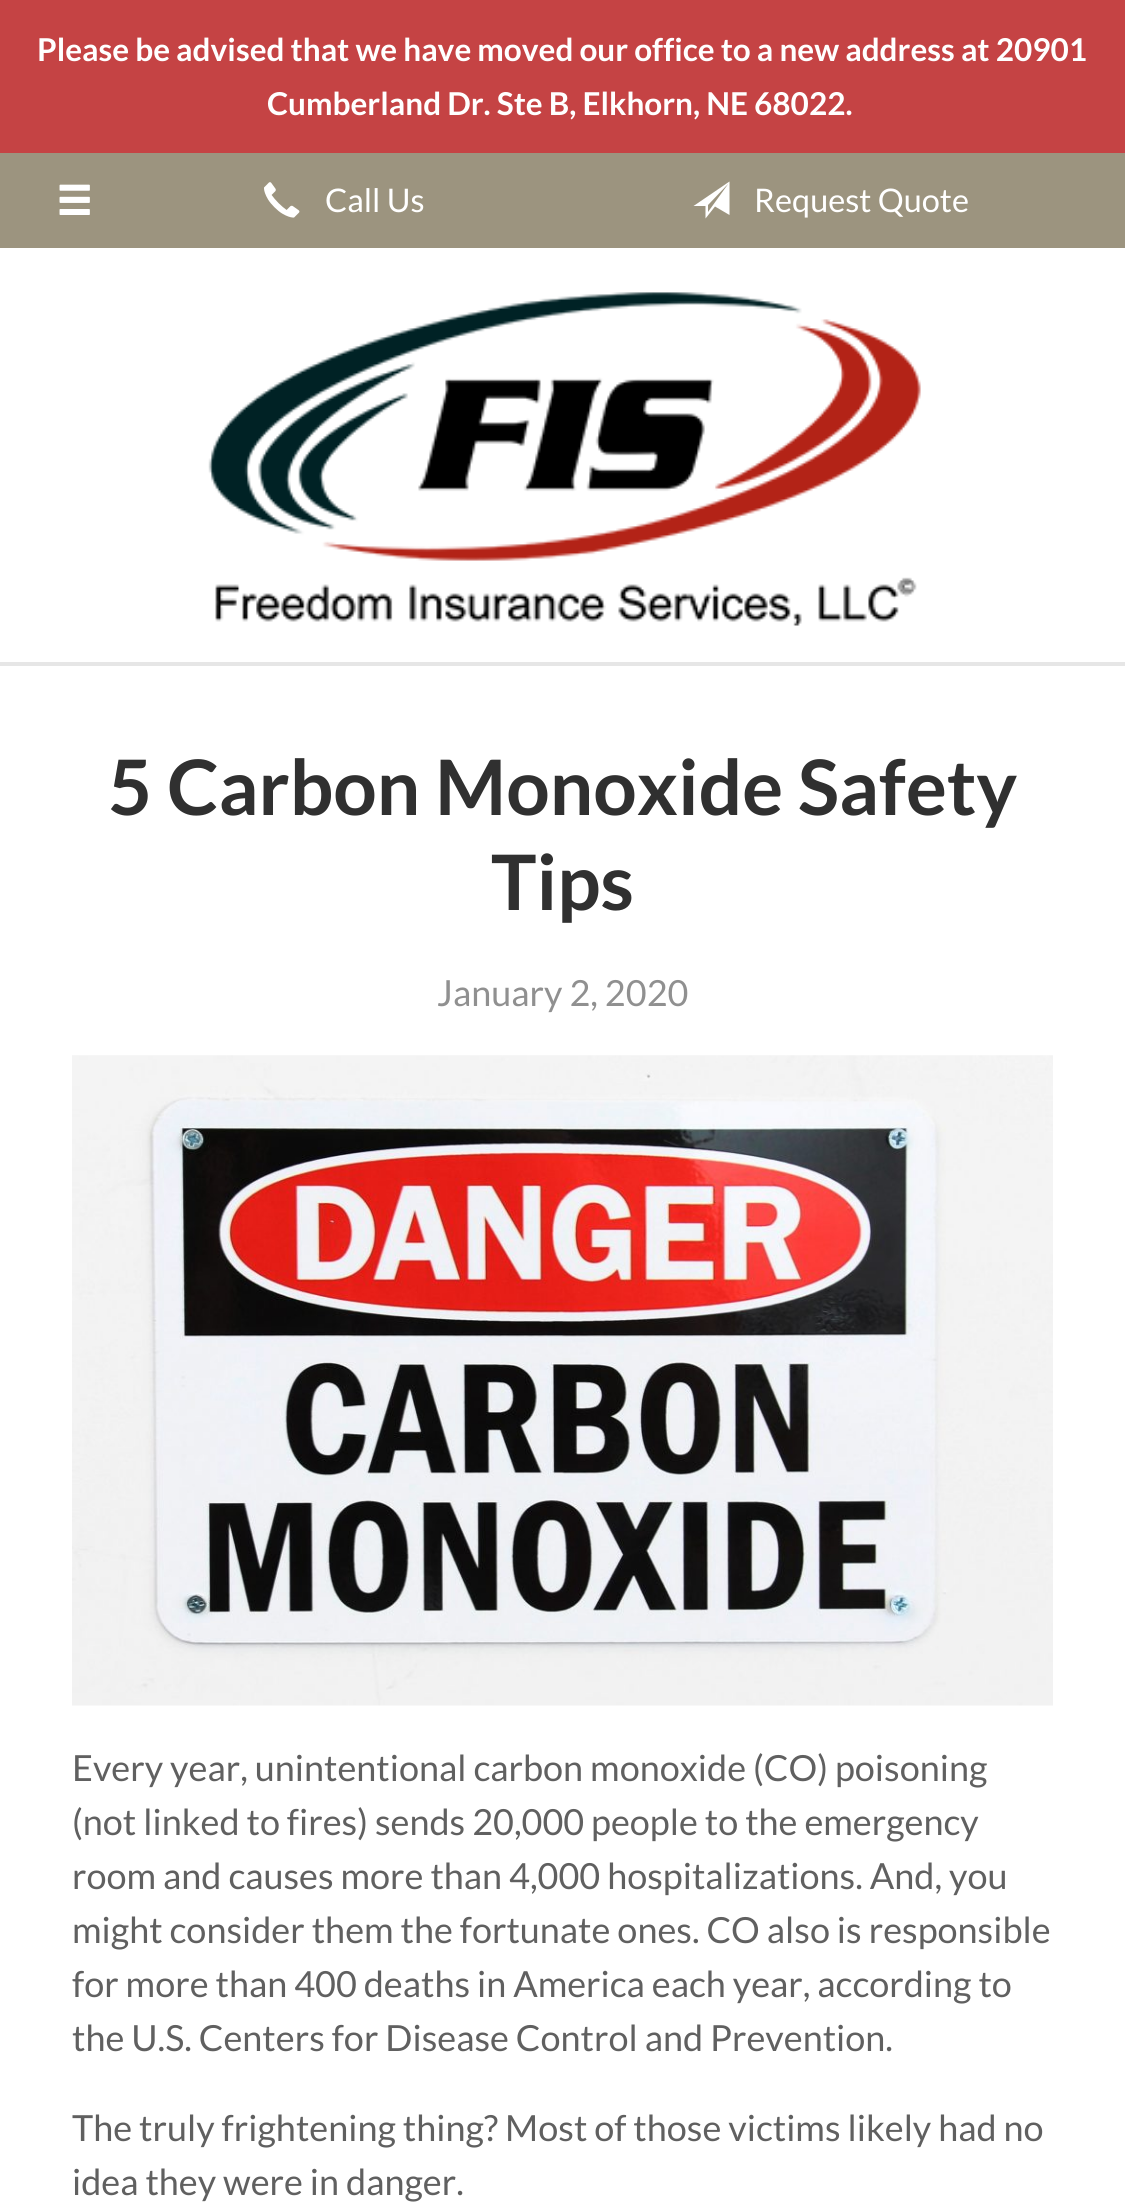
#include <cairo.h>
#include <math.h>
#include <stddef.h>


static void picture(cairo_t *cr, const char *path, double x, double y, double w, double h) {
    cairo_surface_t *image = cairo_image_surface_create_from_png(path);
    cairo_save(cr);
    cairo_set_source_surface(cr, image, x, y);
    cairo_rectangle(cr, x, y, w, h);
    cairo_fill(cr);
    cairo_restore(cr);
    cairo_surface_destroy(image);
}

int main(void) {
    cairo_surface_t *surface = cairo_image_surface_create(CAIRO_FORMAT_RGB24, 1125, 2207);
    cairo_t *cr = cairo_create(surface);
    cairo_font_options_t *options = cairo_font_options_create();
    cairo_font_options_set_hint_metrics(options, CAIRO_HINT_METRICS_OFF);
    cairo_font_options_set_hint_style(options, CAIRO_HINT_STYLE_NONE);
    cairo_set_font_options(cr, options);
    cairo_set_miter_limit(cr, 4);
    cairo_set_source_rgb(cr, 0.773, 0.263, 0.267);
    cairo_paint(cr);
    cairo_select_font_face(cr, "Lato", CAIRO_FONT_SLANT_NORMAL, CAIRO_FONT_WEIGHT_BOLD);
    cairo_set_font_size(cr, 31.5);
    cairo_set_source_rgb(cr, 1, 1, 1);
    cairo_move_to(cr, 37, 61);
    cairo_show_text(cr, "Please be advised that we have moved our office to a new address at 20901");
    cairo_move_to(cr, 267, 115);
    cairo_show_text(cr, "Cumberland Dr. Ste B, Elkhorn, NE 68022.");
    cairo_set_source_rgb(cr, 0.612, 0.58, 0.498);
    cairo_rectangle(cr, 0, 153, 1125, 95);
    cairo_fill(cr);
    picture(cr, "img1.png", 59, 184, 31, 31);
    picture(cr, "img2.png", 264, 182, 36, 36);
    cairo_select_font_face(cr, "Lato", CAIRO_FONT_SLANT_NORMAL, CAIRO_FONT_WEIGHT_NORMAL);
    cairo_set_font_size(cr, 32.5);
    cairo_set_source_rgb(cr, 1, 1, 1);
    cairo_move_to(cr, 325, 212);
    cairo_show_text(cr, "Call Us");
    cairo_new_path(cr);
    cairo_move_to(cr, 693.5, 206);
    cairo_line_to(cr, 705.5, 206);
    cairo_line_to(cr, 705.5, 218.5);
    cairo_line_to(cr, 715, 206.5);
    cairo_line_to(cr, 729.5, 215);
    cairo_line_to(cr, 729.5, 181.5);
    cairo_close_path(cr);
    cairo_move_to(cr, 708, 212);
    cairo_line_to(cr, 708, 205);
    cairo_line_to(cr, 728.5, 183.5);
    cairo_close_path(cr);
    cairo_fill(cr);
    cairo_move_to(cr, 754, 212);
    cairo_show_text(cr, "Request Quote");
    cairo_rectangle(cr, 0, 248, 1125, 414);
    cairo_fill(cr);
    cairo_set_source_rgb(cr, 0.902, 0.902, 0.902);
    cairo_rectangle(cr, 0, 662, 1125, 4);
    cairo_fill(cr);
    picture(cr, "img3.png", 208, 292, 713, 334);
    cairo_set_source_rgb(cr, 1, 1, 1);
    cairo_rectangle(cr, 0, 666, 1125, 1541);
    cairo_fill(cr);
    cairo_select_font_face(cr, "Lato", CAIRO_FONT_SLANT_NORMAL, CAIRO_FONT_WEIGHT_BOLD);
    cairo_set_font_size(cr, 76.5);
    cairo_set_source_rgb(cr, 0.188, 0.188, 0.188);
    cairo_move_to(cr, 108, 815);
    cairo_show_text(cr, "5 Carbon Monoxide Safety");
    cairo_move_to(cr, 491, 910);
    cairo_show_text(cr, "Tips");
    cairo_select_font_face(cr, "Lato", CAIRO_FONT_SLANT_NORMAL, CAIRO_FONT_WEIGHT_NORMAL);
    cairo_set_font_size(cr, 36);
    cairo_set_source_rgb(cr, 0.565, 0.565, 0.565);
    cairo_move_to(cr, 437, 1006);
    cairo_show_text(cr, "January 2, 2020");
    picture(cr, "img4.png", 72, 1055, 981, 651);
    cairo_set_source_rgb(cr, 0.376, 0.376, 0.376);
    cairo_move_to(cr, 72, 1781);
    cairo_show_text(cr, "Every year, unintentional carbon monoxide (CO) poisoning");
    cairo_move_to(cr, 72, 1835);
    cairo_show_text(cr, "(not linked to fires) sends 20,000 people to the emergency");
    cairo_move_to(cr, 72, 1889);
    cairo_show_text(cr, "room and causes more than 4,000 hospitalizations. And, you");
    cairo_move_to(cr, 72, 1943);
    cairo_show_text(cr, "might consider them the fortunate ones. CO also is responsible");
    cairo_move_to(cr, 72, 1997);
    cairo_show_text(cr, "for more than 400 deaths in America each year, according to");
    cairo_move_to(cr, 72, 2051);
    cairo_show_text(cr, "the U.S. Centers for Disease Control and Prevention.");
    cairo_move_to(cr, 72, 2141);
    cairo_show_text(cr, "The truly frightening thing? Most of those victims likely had no");
    cairo_move_to(cr, 72, 2195);
    cairo_show_text(cr, "idea they were in danger.");
    cairo_surface_write_to_png(surface, "page.png");
    cairo_font_options_destroy(options);
    cairo_destroy(cr);
    cairo_surface_destroy(surface);
    return 0;
}
